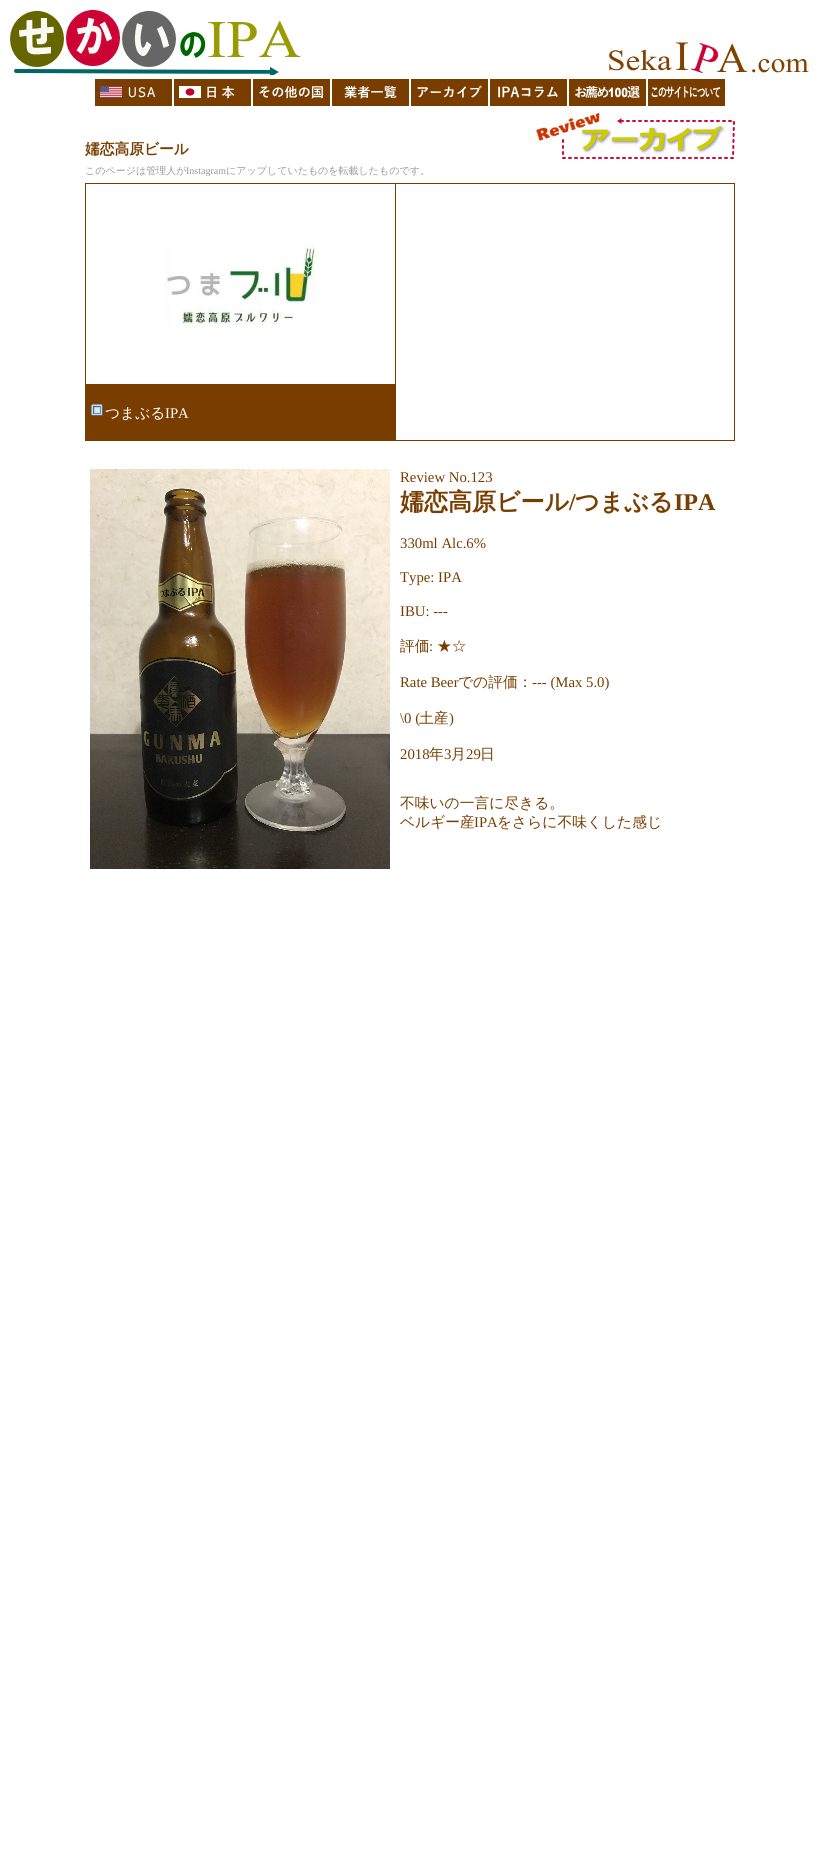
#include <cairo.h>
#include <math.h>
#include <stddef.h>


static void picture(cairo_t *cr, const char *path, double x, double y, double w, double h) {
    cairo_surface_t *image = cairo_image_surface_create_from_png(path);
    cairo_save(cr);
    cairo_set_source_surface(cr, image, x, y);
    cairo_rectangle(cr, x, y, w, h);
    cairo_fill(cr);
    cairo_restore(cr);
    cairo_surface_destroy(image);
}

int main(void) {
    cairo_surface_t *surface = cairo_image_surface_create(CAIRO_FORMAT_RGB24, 819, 1853);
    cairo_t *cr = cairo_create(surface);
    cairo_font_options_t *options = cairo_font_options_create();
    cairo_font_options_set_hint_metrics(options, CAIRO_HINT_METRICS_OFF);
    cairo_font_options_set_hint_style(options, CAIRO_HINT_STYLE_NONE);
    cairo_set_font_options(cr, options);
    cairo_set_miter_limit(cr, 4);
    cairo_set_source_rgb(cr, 1, 1, 1);
    cairo_paint(cr);
    picture(cr, "img1.png", 10, 10, 291, 65);
    picture(cr, "img2.png", 609, 42, 200, 31);
    cairo_set_source_rgb(cr, 0.475, 0.239, 0);
    cairo_rectangle(cr, 95, 79, 77, 27);
    cairo_fill(cr);
    picture(cr, "img3.png", 100, 86, 56, 12);
    cairo_rectangle(cr, 174, 79, 77, 27);
    cairo_fill(cr);
    picture(cr, "img4.png", 179, 85, 56, 14);
    cairo_rectangle(cr, 253, 79, 77, 27);
    cairo_fill(cr);
    picture(cr, "img5.png", 259, 86, 64, 13);
    cairo_rectangle(cr, 332, 79, 77, 27);
    cairo_fill(cr);
    picture(cr, "img6.png", 344, 85, 53, 14);
    cairo_rectangle(cr, 411, 79, 77, 27);
    cairo_fill(cr);
    picture(cr, "img7.png", 417, 85, 65, 13);
    cairo_rectangle(cr, 490, 79, 77, 27);
    cairo_fill(cr);
    picture(cr, "img8.png", 498, 86, 60, 12);
    cairo_rectangle(cr, 569, 79, 77, 27);
    cairo_fill(cr);
    picture(cr, "img9.png", 575, 85, 65, 13);
    cairo_rectangle(cr, 648, 79, 77, 27);
    cairo_fill(cr);
    picture(cr, "img10.png", 651, 86, 70, 12);
    cairo_select_font_face(cr, "WenQuanYi Zen Hei", CAIRO_FONT_SLANT_NORMAL, CAIRO_FONT_WEIGHT_BOLD);
    cairo_set_font_size(cr, 14.75);
    cairo_move_to(cr, 85, 154);
    cairo_show_text(cr, "嬬恋高原ビール");
    picture(cr, "img11.png", 536, 113, 199, 46);
    cairo_select_font_face(cr, "WenQuanYi Zen Hei Medium", CAIRO_FONT_SLANT_NORMAL, CAIRO_FONT_WEIGHT_NORMAL);
    cairo_set_font_size(cr, 10);
    cairo_set_source_rgb(cr, 0.6, 0.6, 0.6);
    cairo_move_to(cr, 85, 174);
    cairo_show_text(cr, "このページは管理人が");
    cairo_select_font_face(cr, "Liberation Serif", CAIRO_FONT_SLANT_NORMAL, CAIRO_FONT_WEIGHT_NORMAL);
    cairo_move_to(cr, 186, 174);
    cairo_show_text(cr, "Instagram");
    cairo_select_font_face(cr, "WenQuanYi Zen Hei Medium", CAIRO_FONT_SLANT_NORMAL, CAIRO_FONT_WEIGHT_NORMAL);
    cairo_move_to(cr, 226, 174);
    cairo_show_text(cr, "にアップしていたものを転載したものです。");
    cairo_set_source_rgb(cr, 0.475, 0.239, 0);
    cairo_rectangle(cr, 85, 183, 650, 258);
    cairo_fill(cr);
    cairo_set_source_rgb(cr, 1, 1, 1);
    cairo_rectangle(cr, 86, 184, 309, 200);
    cairo_fill(cr);
    picture(cr, "img12.png", 165, 244, 150, 81);
    cairo_rectangle(cr, 396, 184, 338, 256);
    cairo_fill(cr);
    picture(cr, "img13.png", 91, 404, 12, 12);
    cairo_set_font_size(cr, 14.75);
    cairo_move_to(cr, 105, 418);
    cairo_show_text(cr, "つまぶる");
    cairo_select_font_face(cr, "Liberation Serif", CAIRO_FONT_SLANT_NORMAL, CAIRO_FONT_WEIGHT_NORMAL);
    cairo_move_to(cr, 165, 418);
    cairo_show_text(cr, "IPA");
    picture(cr, "img14.png", 90, 469, 300, 400);
    cairo_set_source_rgb(cr, 0.475, 0.239, 0);
    cairo_move_to(cr, 400, 482);
    cairo_show_text(cr, "Review No.123");
    cairo_select_font_face(cr, "WenQuanYi Zen Hei", CAIRO_FONT_SLANT_NORMAL, CAIRO_FONT_WEIGHT_BOLD);
    cairo_set_font_size(cr, 24);
    cairo_move_to(cr, 400, 510);
    cairo_show_text(cr, "嬬恋高原ビール");
    cairo_select_font_face(cr, "Liberation Serif", CAIRO_FONT_SLANT_NORMAL, CAIRO_FONT_WEIGHT_BOLD);
    cairo_move_to(cr, 569, 510);
    cairo_show_text(cr, "/");
    cairo_select_font_face(cr, "WenQuanYi Zen Hei", CAIRO_FONT_SLANT_NORMAL, CAIRO_FONT_WEIGHT_BOLD);
    cairo_move_to(cr, 575, 510);
    cairo_show_text(cr, "つまぶる");
    cairo_select_font_face(cr, "Liberation Serif", CAIRO_FONT_SLANT_NORMAL, CAIRO_FONT_WEIGHT_BOLD);
    cairo_move_to(cr, 674, 510);
    cairo_show_text(cr, "IPA");
    cairo_select_font_face(cr, "Liberation Serif", CAIRO_FONT_SLANT_NORMAL, CAIRO_FONT_WEIGHT_NORMAL);
    cairo_set_font_size(cr, 14.75);
    cairo_move_to(cr, 400, 548);
    cairo_show_text(cr, "330ml Alc.6%");
    cairo_move_to(cr, 400, 582);
    cairo_show_text(cr, "Type: IPA");
    cairo_move_to(cr, 400, 616);
    cairo_show_text(cr, "IBU: ---");
    cairo_select_font_face(cr, "WenQuanYi Zen Hei Medium", CAIRO_FONT_SLANT_NORMAL, CAIRO_FONT_WEIGHT_NORMAL);
    cairo_move_to(cr, 400, 651);
    cairo_show_text(cr, "評価");
    cairo_select_font_face(cr, "Liberation Serif", CAIRO_FONT_SLANT_NORMAL, CAIRO_FONT_WEIGHT_NORMAL);
    cairo_move_to(cr, 429, 651);
    cairo_show_text(cr, ":");
    cairo_select_font_face(cr, "WenQuanYi Zen Hei Medium", CAIRO_FONT_SLANT_NORMAL, CAIRO_FONT_WEIGHT_NORMAL);
    cairo_move_to(cr, 437, 651);
    cairo_show_text(cr, "★☆");
    cairo_select_font_face(cr, "Liberation Serif", CAIRO_FONT_SLANT_NORMAL, CAIRO_FONT_WEIGHT_NORMAL);
    cairo_move_to(cr, 400, 687);
    cairo_show_text(cr, "Rate Beer");
    cairo_select_font_face(cr, "WenQuanYi Zen Hei Medium", CAIRO_FONT_SLANT_NORMAL, CAIRO_FONT_WEIGHT_NORMAL);
    cairo_move_to(cr, 458, 687);
    cairo_show_text(cr, "での評価：");
    cairo_select_font_face(cr, "Liberation Serif", CAIRO_FONT_SLANT_NORMAL, CAIRO_FONT_WEIGHT_NORMAL);
    cairo_move_to(cr, 532, 687);
    cairo_show_text(cr, "--- (Max 5.0)");
    cairo_move_to(cr, 400, 723);
    cairo_show_text(cr, "\\0 (");
    cairo_select_font_face(cr, "WenQuanYi Zen Hei Medium", CAIRO_FONT_SLANT_NORMAL, CAIRO_FONT_WEIGHT_NORMAL);
    cairo_move_to(cr, 419, 723);
    cairo_show_text(cr, "土産");
    cairo_select_font_face(cr, "Liberation Serif", CAIRO_FONT_SLANT_NORMAL, CAIRO_FONT_WEIGHT_NORMAL);
    cairo_move_to(cr, 449, 723);
    cairo_show_text(cr, ")");
    cairo_move_to(cr, 400, 759);
    cairo_show_text(cr, "2018");
    cairo_select_font_face(cr, "WenQuanYi Zen Hei Medium", CAIRO_FONT_SLANT_NORMAL, CAIRO_FONT_WEIGHT_NORMAL);
    cairo_move_to(cr, 429, 759);
    cairo_show_text(cr, "年");
    cairo_select_font_face(cr, "Liberation Serif", CAIRO_FONT_SLANT_NORMAL, CAIRO_FONT_WEIGHT_NORMAL);
    cairo_move_to(cr, 444, 759);
    cairo_show_text(cr, "3");
    cairo_select_font_face(cr, "WenQuanYi Zen Hei Medium", CAIRO_FONT_SLANT_NORMAL, CAIRO_FONT_WEIGHT_NORMAL);
    cairo_move_to(cr, 451, 759);
    cairo_show_text(cr, "月");
    cairo_select_font_face(cr, "Liberation Serif", CAIRO_FONT_SLANT_NORMAL, CAIRO_FONT_WEIGHT_NORMAL);
    cairo_move_to(cr, 466, 759);
    cairo_show_text(cr, "29");
    cairo_select_font_face(cr, "WenQuanYi Zen Hei Medium", CAIRO_FONT_SLANT_NORMAL, CAIRO_FONT_WEIGHT_NORMAL);
    cairo_move_to(cr, 480, 759);
    cairo_show_text(cr, "日");
    cairo_move_to(cr, 400, 808);
    cairo_show_text(cr, "不味いの一言に尽きる。");
    cairo_move_to(cr, 400, 827);
    cairo_show_text(cr, "ベルギー産");
    cairo_select_font_face(cr, "Liberation Serif", CAIRO_FONT_SLANT_NORMAL, CAIRO_FONT_WEIGHT_NORMAL);
    cairo_move_to(cr, 474, 827);
    cairo_show_text(cr, "IPA");
    cairo_select_font_face(cr, "WenQuanYi Zen Hei Medium", CAIRO_FONT_SLANT_NORMAL, CAIRO_FONT_WEIGHT_NORMAL);
    cairo_move_to(cr, 497, 827);
    cairo_show_text(cr, "をさらに不味くした感じ");
    cairo_surface_write_to_png(surface, "page.png");
    cairo_font_options_destroy(options);
    cairo_destroy(cr);
    cairo_surface_destroy(surface);
    return 0;
}
